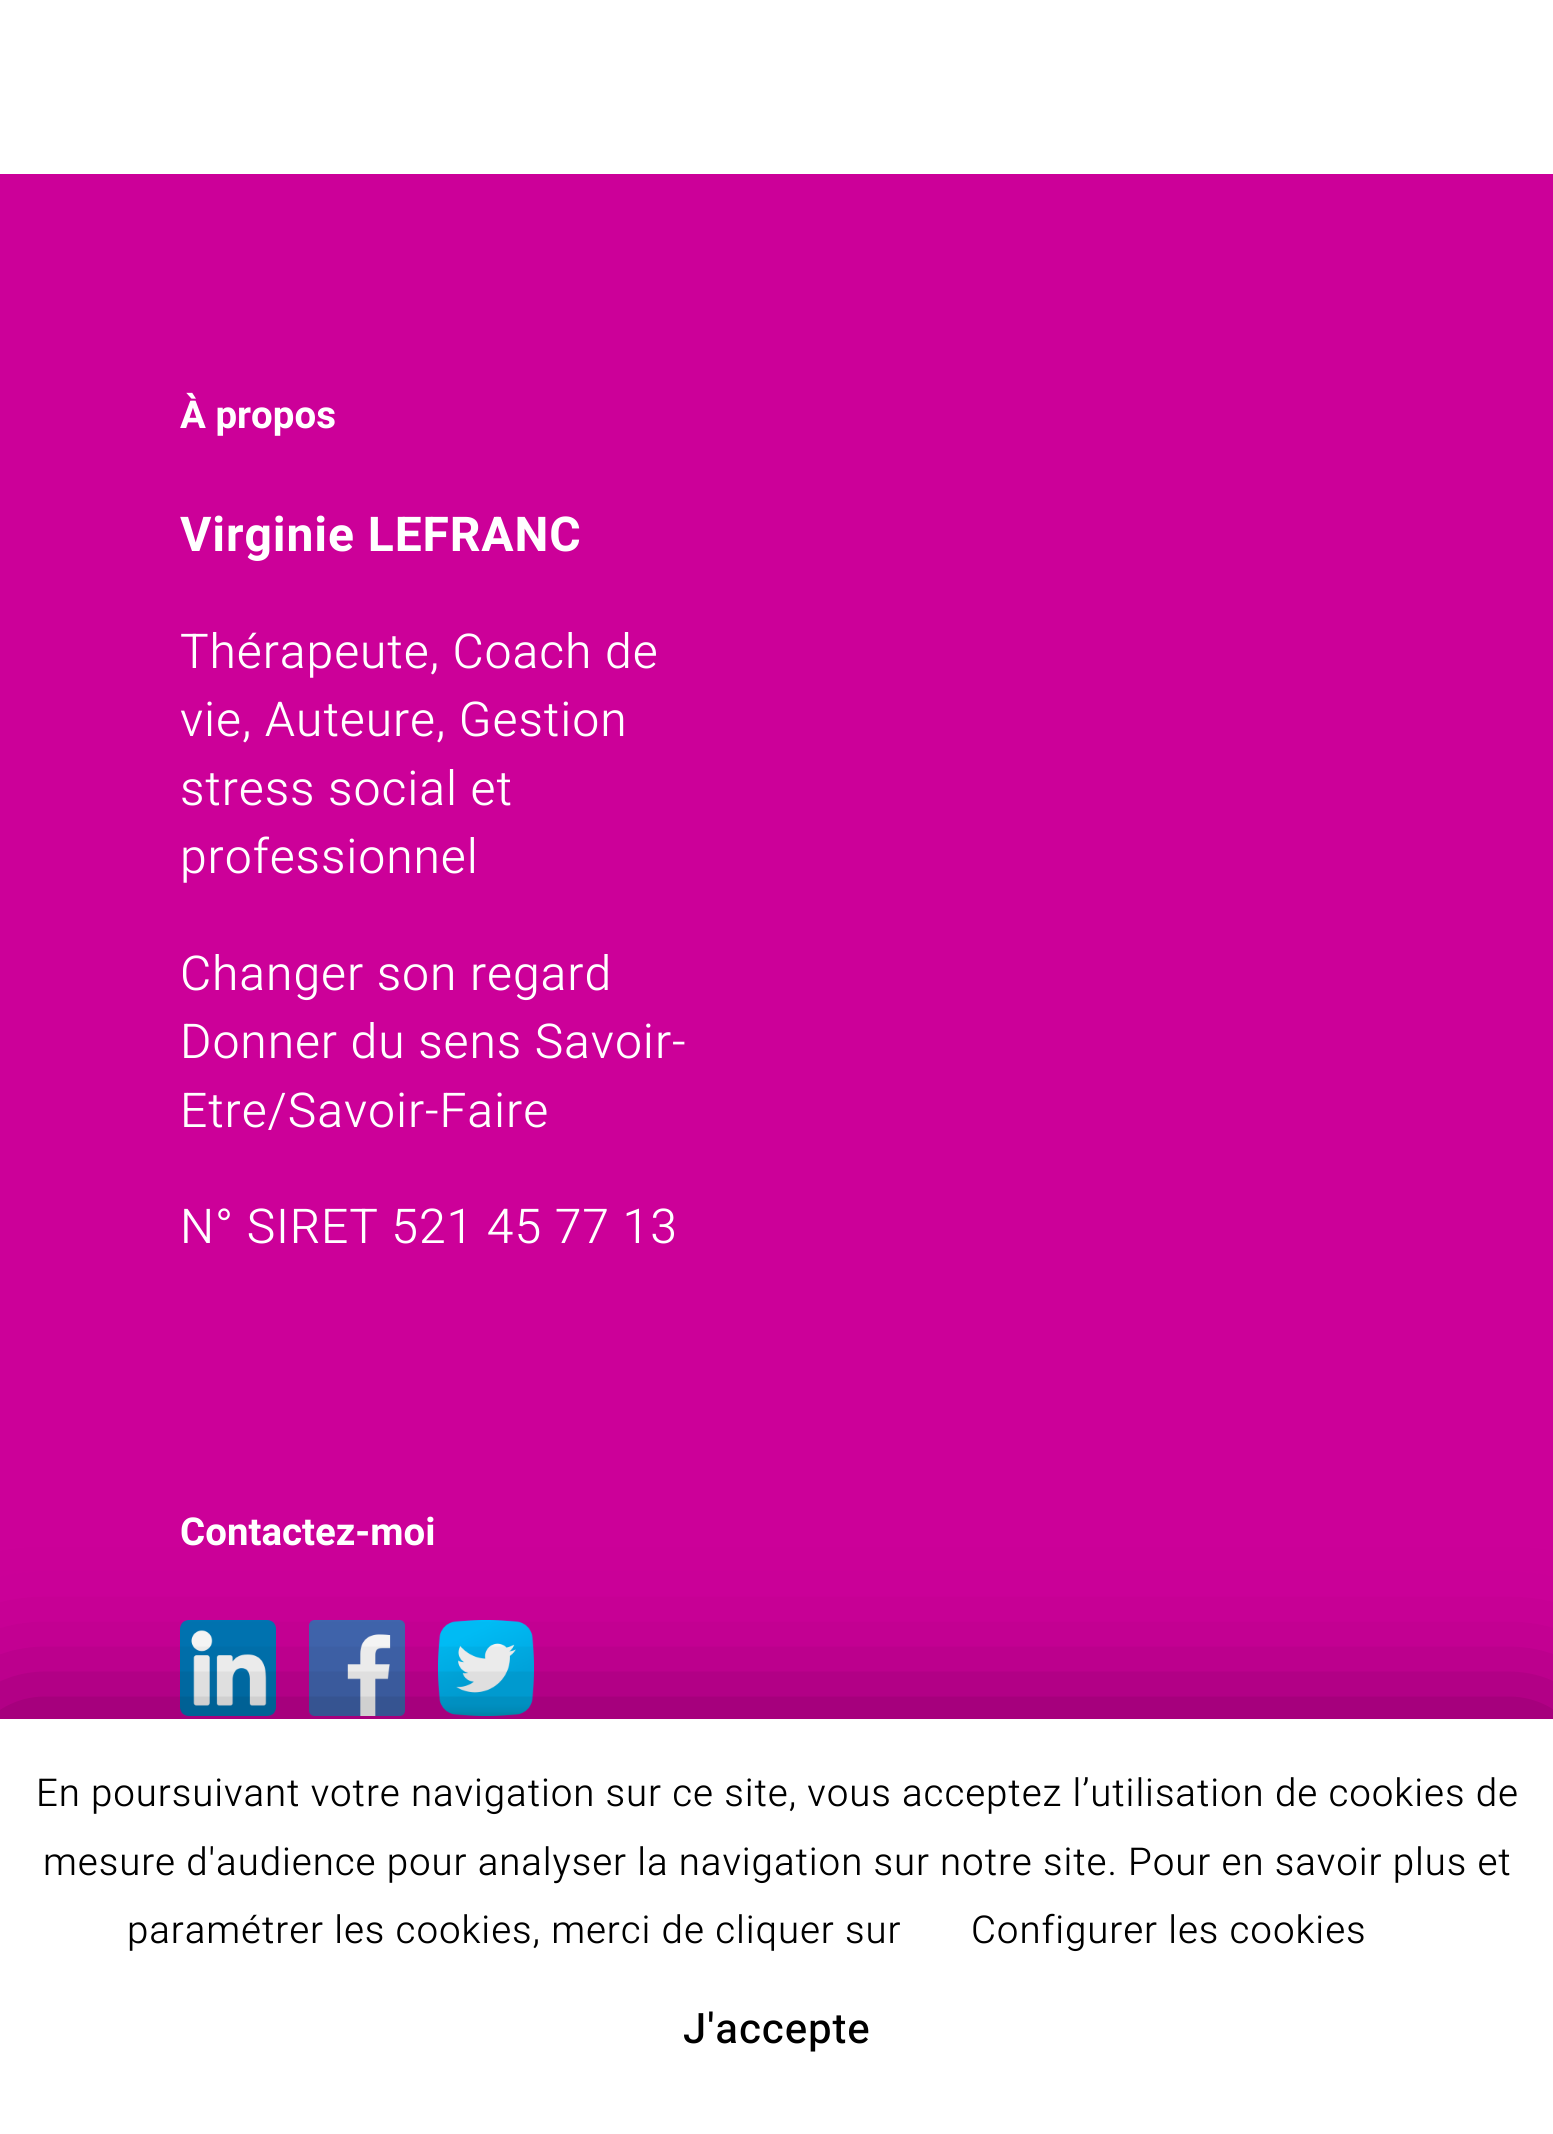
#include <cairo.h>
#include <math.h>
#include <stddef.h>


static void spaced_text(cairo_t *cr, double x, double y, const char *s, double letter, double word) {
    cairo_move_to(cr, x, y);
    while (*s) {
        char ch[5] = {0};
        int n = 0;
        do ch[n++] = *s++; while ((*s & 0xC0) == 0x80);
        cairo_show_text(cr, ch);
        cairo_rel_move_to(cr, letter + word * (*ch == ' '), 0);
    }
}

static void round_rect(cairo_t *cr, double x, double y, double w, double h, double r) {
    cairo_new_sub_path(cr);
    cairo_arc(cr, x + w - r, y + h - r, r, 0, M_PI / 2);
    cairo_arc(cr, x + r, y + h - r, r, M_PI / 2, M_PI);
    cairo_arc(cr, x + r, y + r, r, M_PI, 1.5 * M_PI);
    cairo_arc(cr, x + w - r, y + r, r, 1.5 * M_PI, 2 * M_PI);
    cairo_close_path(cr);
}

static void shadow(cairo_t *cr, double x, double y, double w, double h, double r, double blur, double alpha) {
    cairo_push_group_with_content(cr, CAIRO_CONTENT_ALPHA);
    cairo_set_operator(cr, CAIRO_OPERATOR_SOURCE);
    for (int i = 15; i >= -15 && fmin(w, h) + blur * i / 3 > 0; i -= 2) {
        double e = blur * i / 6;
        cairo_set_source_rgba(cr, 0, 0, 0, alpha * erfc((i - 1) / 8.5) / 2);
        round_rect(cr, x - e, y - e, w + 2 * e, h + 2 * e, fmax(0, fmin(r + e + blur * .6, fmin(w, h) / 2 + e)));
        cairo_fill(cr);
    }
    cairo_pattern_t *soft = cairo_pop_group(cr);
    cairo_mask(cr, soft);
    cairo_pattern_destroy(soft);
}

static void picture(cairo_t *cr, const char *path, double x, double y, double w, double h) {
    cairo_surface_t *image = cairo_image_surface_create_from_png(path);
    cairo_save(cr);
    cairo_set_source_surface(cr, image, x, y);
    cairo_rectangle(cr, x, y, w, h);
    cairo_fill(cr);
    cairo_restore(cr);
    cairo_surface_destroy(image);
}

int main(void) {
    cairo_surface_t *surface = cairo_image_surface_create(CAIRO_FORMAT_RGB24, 1553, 2134);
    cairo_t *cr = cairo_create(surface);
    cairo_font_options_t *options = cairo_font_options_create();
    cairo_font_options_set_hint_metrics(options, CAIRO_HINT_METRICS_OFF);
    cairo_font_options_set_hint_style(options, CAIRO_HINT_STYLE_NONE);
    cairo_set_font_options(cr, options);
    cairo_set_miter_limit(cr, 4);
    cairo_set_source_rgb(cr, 1, 1, 1);
    cairo_paint(cr);
    cairo_set_source_rgb(cr, 0.8, 0, 0.6);
    cairo_rectangle(cr, 0, 174, 1553, 1545);
    cairo_fill(cr);
    cairo_select_font_face(cr, "Heebo", CAIRO_FONT_SLANT_NORMAL, CAIRO_FONT_WEIGHT_BOLD);
    cairo_set_font_size(cr, 38.4);
    cairo_set_source_rgb(cr, 1, 1, 1);
    cairo_move_to(cr, 180, 428);
    cairo_show_text(cr, "À propos");
    cairo_set_font_size(cr, 48);
    spaced_text(cr, 180, 551, "Virginie LEFRANC", 0.9, 0);
    cairo_select_font_face(cr, "Heebo Light", CAIRO_FONT_SLANT_NORMAL, CAIRO_FONT_WEIGHT_NORMAL);
    spaced_text(cr, 180, 668, "Thérapeute, Coach de", 0.9, 0);
    spaced_text(cr, 180, 736, "vie, Auteure, Gestion", 0.9, 0);
    spaced_text(cr, 180, 805, "stress social et", 0.9, 0);
    spaced_text(cr, 180, 873, "professionnel", 0.9, 0);
    spaced_text(cr, 180, 990, "Changer son regard", 0.9, 0);
    spaced_text(cr, 180, 1058, "Donner du sens Savoir-", 0.9, 0);
    spaced_text(cr, 180, 1127, "Etre/Savoir-Faire", 0.9, 0);
    spaced_text(cr, 180, 1243, "N° SIRET 521 45 77 13", 0.9, 0);
    cairo_select_font_face(cr, "Heebo", CAIRO_FONT_SLANT_NORMAL, CAIRO_FONT_WEIGHT_BOLD);
    cairo_set_font_size(cr, 38.4);
    cairo_move_to(cr, 180, 1545);
    cairo_show_text(cr, "Contactez-moi");
    picture(cr, "img1.png", 180, 1620, 96, 96);
    picture(cr, "img2.png", 309, 1620, 96, 96);
    picture(cr, "img3.png", 438, 1620, 96, 96);
    cairo_set_source_rgb(cr, 0, 0, 0);
    shadow(cr, 0, 1734, 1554, 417, 0, 75, 0.5);
    cairo_set_source_rgb(cr, 1, 1, 1);
    cairo_rectangle(cr, 0, 1719, 1553, 415);
    cairo_fill(cr);
    cairo_select_font_face(cr, "Heebo Light", CAIRO_FONT_SLANT_NORMAL, CAIRO_FONT_WEIGHT_NORMAL);
    cairo_set_source_rgb(cr, 0, 0, 0);
    spaced_text(cr, 36, 1806, "En poursuivant votre navigation sur ce site, vous acceptez l’utilisation de cookies de", 0.9, 0);
    spaced_text(cr, 43, 1875, "mesure d'audience pour analyser la navigation sur notre site. Pour en savoir plus et", 0.9, 0);
    spaced_text(cr, 127, 1943, "paramétrer les cookies, merci de cliquer sur", 0.9, 0);
    spaced_text(cr, 971, 1943, "Configurer les cookies", 0.9, 0);
    cairo_select_font_face(cr, "Heebo Medium", CAIRO_FONT_SLANT_NORMAL, CAIRO_FONT_WEIGHT_NORMAL);
    cairo_set_font_size(cr, 42);
    spaced_text(cr, 683, 2043, "J'accepte", 0.9, 0);
    cairo_surface_write_to_png(surface, "page.png");
    cairo_font_options_destroy(options);
    cairo_destroy(cr);
    cairo_surface_destroy(surface);
    return 0;
}
